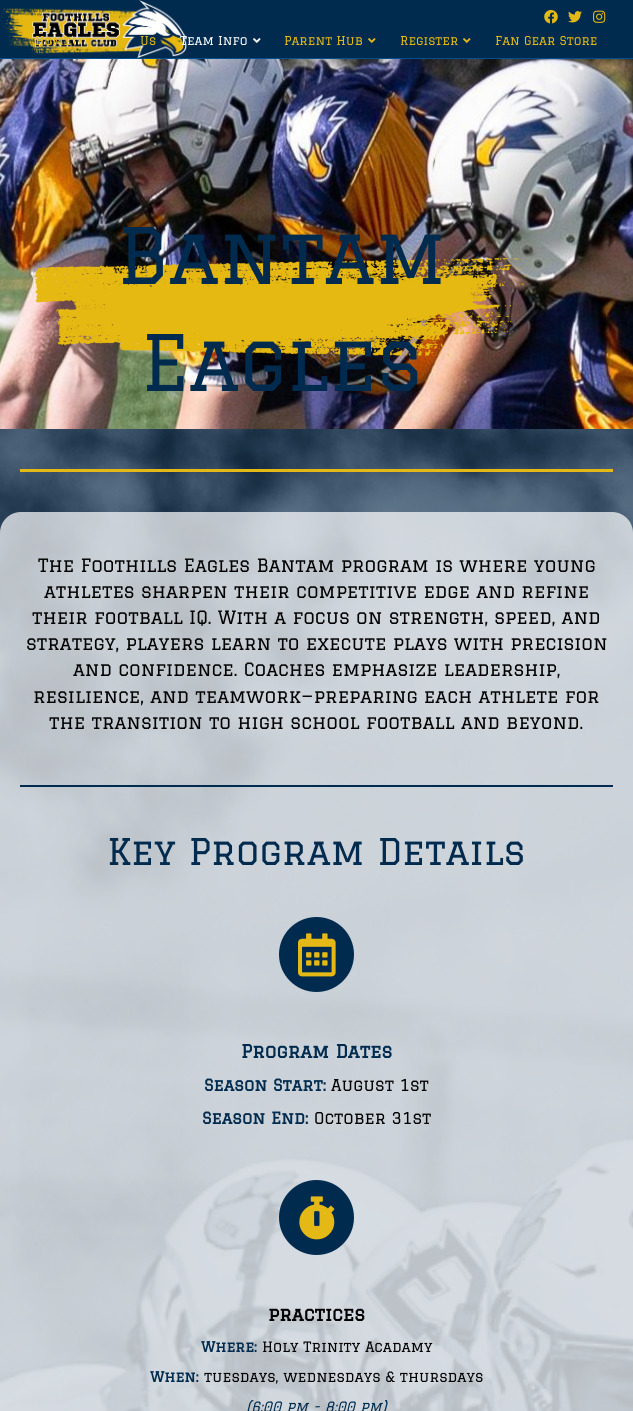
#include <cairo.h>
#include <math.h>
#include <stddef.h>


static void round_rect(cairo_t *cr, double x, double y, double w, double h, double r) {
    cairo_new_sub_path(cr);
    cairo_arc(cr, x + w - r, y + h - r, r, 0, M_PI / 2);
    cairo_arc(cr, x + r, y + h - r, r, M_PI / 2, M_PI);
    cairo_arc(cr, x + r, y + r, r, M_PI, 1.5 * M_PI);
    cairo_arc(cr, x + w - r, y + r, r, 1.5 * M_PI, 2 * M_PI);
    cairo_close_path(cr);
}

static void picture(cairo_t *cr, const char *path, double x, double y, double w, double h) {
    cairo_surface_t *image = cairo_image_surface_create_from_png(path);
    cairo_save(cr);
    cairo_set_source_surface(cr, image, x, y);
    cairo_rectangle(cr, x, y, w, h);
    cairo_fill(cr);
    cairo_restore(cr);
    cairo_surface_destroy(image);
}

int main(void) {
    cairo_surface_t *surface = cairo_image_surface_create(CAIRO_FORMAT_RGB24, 633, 1411);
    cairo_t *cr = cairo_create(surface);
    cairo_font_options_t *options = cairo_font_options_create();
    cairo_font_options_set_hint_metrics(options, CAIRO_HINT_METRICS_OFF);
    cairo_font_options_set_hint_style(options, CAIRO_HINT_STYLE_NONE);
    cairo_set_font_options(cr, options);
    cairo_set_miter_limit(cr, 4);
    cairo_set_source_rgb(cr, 0, 0.169, 0.306);
    cairo_paint(cr);
    picture(cr, "img1.png", 1, 0, 186, 58);
    cairo_set_source_rgb(cr, 0, 0.314, 0.565);
    cairo_rectangle(cr, 0, 58, 633, 1);
    cairo_fill(cr);
    picture(cr, "img2.png", 544, 10, 14, 14);
    picture(cr, "img3.png", 568, 11, 14, 12);
    picture(cr, "img4.png", 593, 10, 13, 13);
    cairo_select_font_face(cr, "Graduate", CAIRO_FONT_SLANT_NORMAL, CAIRO_FONT_WEIGHT_NORMAL);
    cairo_set_font_size(cr, 12);
    cairo_set_source_rgb(cr, 0.894, 0.725, 0.086);
    cairo_move_to(cr, 35, 45);
    cairo_show_text(cr, "Home");
    cairo_move_to(cr, 140, 45);
    cairo_show_text(cr, "Us");
    cairo_set_source_rgb(cr, 1, 1, 1);
    cairo_move_to(cr, 180, 45);
    cairo_show_text(cr, "Team Info");
    picture(cr, "img5.png", 253, 38, 8, 5);
    cairo_set_source_rgb(cr, 0.894, 0.725, 0.086);
    cairo_move_to(cr, 284, 45);
    cairo_show_text(cr, "Parent Hub");
    picture(cr, "img6.png", 368, 38, 8, 5);
    cairo_move_to(cr, 400, 45);
    cairo_show_text(cr, "Register");
    picture(cr, "img6.png", 463, 38, 8, 5);
    cairo_move_to(cr, 495, 45);
    cairo_show_text(cr, "Fan Gear Store");
    picture(cr, "img7.png", 0, 429, 633, 982);
    picture(cr, "img8.png", 0, 59, 633, 370);
    picture(cr, "img9.png", 34, 257, 496, 99);
    cairo_set_font_size(cr, 76);
    cairo_set_source_rgb(cr, 0, 0.169, 0.306);
    cairo_move_to(cr, 117, 284);
    cairo_show_text(cr, "Bantam");
    cairo_move_to(cr, 141, 391);
    cairo_show_text(cr, "Eagles");
    cairo_set_source_rgb(cr, 0.894, 0.725, 0.086);
    cairo_rectangle(cr, 20, 469, 593, 3);
    cairo_fill(cr);
    cairo_set_source_rgba(cr, 1, 1, 1, 0.71);
    round_rect(cr, 0, 512, 633, 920, 21);
    cairo_fill(cr);
    cairo_set_font_size(cr, 18);
    cairo_set_source_rgb(cr, 0, 0, 0);
    cairo_move_to(cr, 38, 572);
    cairo_show_text(cr, "The Foothills Eagles Bantam program is where young");
    cairo_move_to(cr, 44, 598);
    cairo_show_text(cr, "athletes sharpen their competitive edge and refine");
    cairo_move_to(cr, 32, 624);
    cairo_show_text(cr, "their football IQ. With a focus on strength, speed, and");
    cairo_move_to(cr, 26, 650);
    cairo_show_text(cr, "strategy, players learn to execute plays with precision");
    cairo_move_to(cr, 73, 676);
    cairo_show_text(cr, "and confidence. Coaches emphasize leadership,");
    cairo_move_to(cr, 33, 703);
    cairo_show_text(cr, "resilience, and teamwork—preparing each athlete for");
    cairo_move_to(cr, 49, 729);
    cairo_show_text(cr, "the transition to high school football and beyond.");
    cairo_set_source_rgb(cr, 0, 0.169, 0.306);
    cairo_rectangle(cr, 20, 785, 593, 2);
    cairo_fill(cr);
    cairo_set_font_size(cr, 36);
    cairo_move_to(cr, 107, 865);
    cairo_show_text(cr, "Key Program Details");
    cairo_new_path(cr);
    cairo_arc(cr, 316.5, 954.5, 37.5, 0, 2 * M_PI);
    cairo_fill(cr);
    picture(cr, "img10.png", 298, 933, 38, 44);
    cairo_select_font_face(cr, "Graduate", CAIRO_FONT_SLANT_NORMAL, CAIRO_FONT_WEIGHT_BOLD);
    cairo_set_font_size(cr, 18);
    cairo_move_to(cr, 241, 1058);
    cairo_show_text(cr, "Program Dates");
    cairo_set_font_size(cr, 16);
    cairo_move_to(cr, 204, 1091);
    cairo_show_text(cr, "Season Start:");
    cairo_select_font_face(cr, "Graduate", CAIRO_FONT_SLANT_NORMAL, CAIRO_FONT_WEIGHT_NORMAL);
    cairo_set_source_rgb(cr, 0, 0, 0);
    cairo_move_to(cr, 331, 1091);
    cairo_show_text(cr, "August 1st");
    cairo_select_font_face(cr, "Graduate", CAIRO_FONT_SLANT_NORMAL, CAIRO_FONT_WEIGHT_BOLD);
    cairo_set_source_rgb(cr, 0, 0.169, 0.306);
    cairo_move_to(cr, 202, 1124);
    cairo_show_text(cr, "Season End:");
    cairo_select_font_face(cr, "Graduate", CAIRO_FONT_SLANT_NORMAL, CAIRO_FONT_WEIGHT_NORMAL);
    cairo_set_source_rgb(cr, 0, 0, 0);
    cairo_move_to(cr, 314, 1124);
    cairo_show_text(cr, "October 31st");
    cairo_set_source_rgb(cr, 0, 0.169, 0.306);
    cairo_new_path(cr);
    cairo_arc(cr, 316.5, 1217.5, 37.5, 0, 2 * M_PI);
    cairo_fill(cr);
    picture(cr, "img11.png", 299, 1196, 36, 44);
    cairo_select_font_face(cr, "Graduate", CAIRO_FONT_SLANT_NORMAL, CAIRO_FONT_WEIGHT_BOLD);
    cairo_set_font_size(cr, 18);
    cairo_set_source_rgb(cr, 0, 0, 0);
    cairo_move_to(cr, 268, 1321);
    cairo_show_text(cr, "practices");
    cairo_set_font_size(cr, 14);
    cairo_set_source_rgb(cr, 0, 0.169, 0.306);
    cairo_move_to(cr, 201, 1352);
    cairo_show_text(cr, "Where:");
    cairo_select_font_face(cr, "Graduate", CAIRO_FONT_SLANT_NORMAL, CAIRO_FONT_WEIGHT_NORMAL);
    cairo_set_source_rgb(cr, 0, 0, 0);
    cairo_move_to(cr, 262, 1352);
    cairo_show_text(cr, "Holy Trinity Acadamy");
    cairo_select_font_face(cr, "Graduate", CAIRO_FONT_SLANT_NORMAL, CAIRO_FONT_WEIGHT_BOLD);
    cairo_set_source_rgb(cr, 0, 0.169, 0.306);
    cairo_move_to(cr, 150, 1382);
    cairo_show_text(cr, "When:");
    cairo_select_font_face(cr, "Graduate", CAIRO_FONT_SLANT_NORMAL, CAIRO_FONT_WEIGHT_NORMAL);
    cairo_set_source_rgb(cr, 0, 0, 0);
    cairo_move_to(cr, 204, 1382);
    cairo_show_text(cr, "tuesdays, wednesdays & thursdays");
    cairo_select_font_face(cr, "Graduate", CAIRO_FONT_SLANT_ITALIC, CAIRO_FONT_WEIGHT_NORMAL);
    cairo_set_source_rgb(cr, 0, 0.169, 0.306);
    cairo_move_to(cr, 246, 1412);
    cairo_show_text(cr, "(6:00 pm - 8:00 pm)");
    cairo_surface_write_to_png(surface, "page.png");
    cairo_font_options_destroy(options);
    cairo_destroy(cr);
    cairo_surface_destroy(surface);
    return 0;
}
